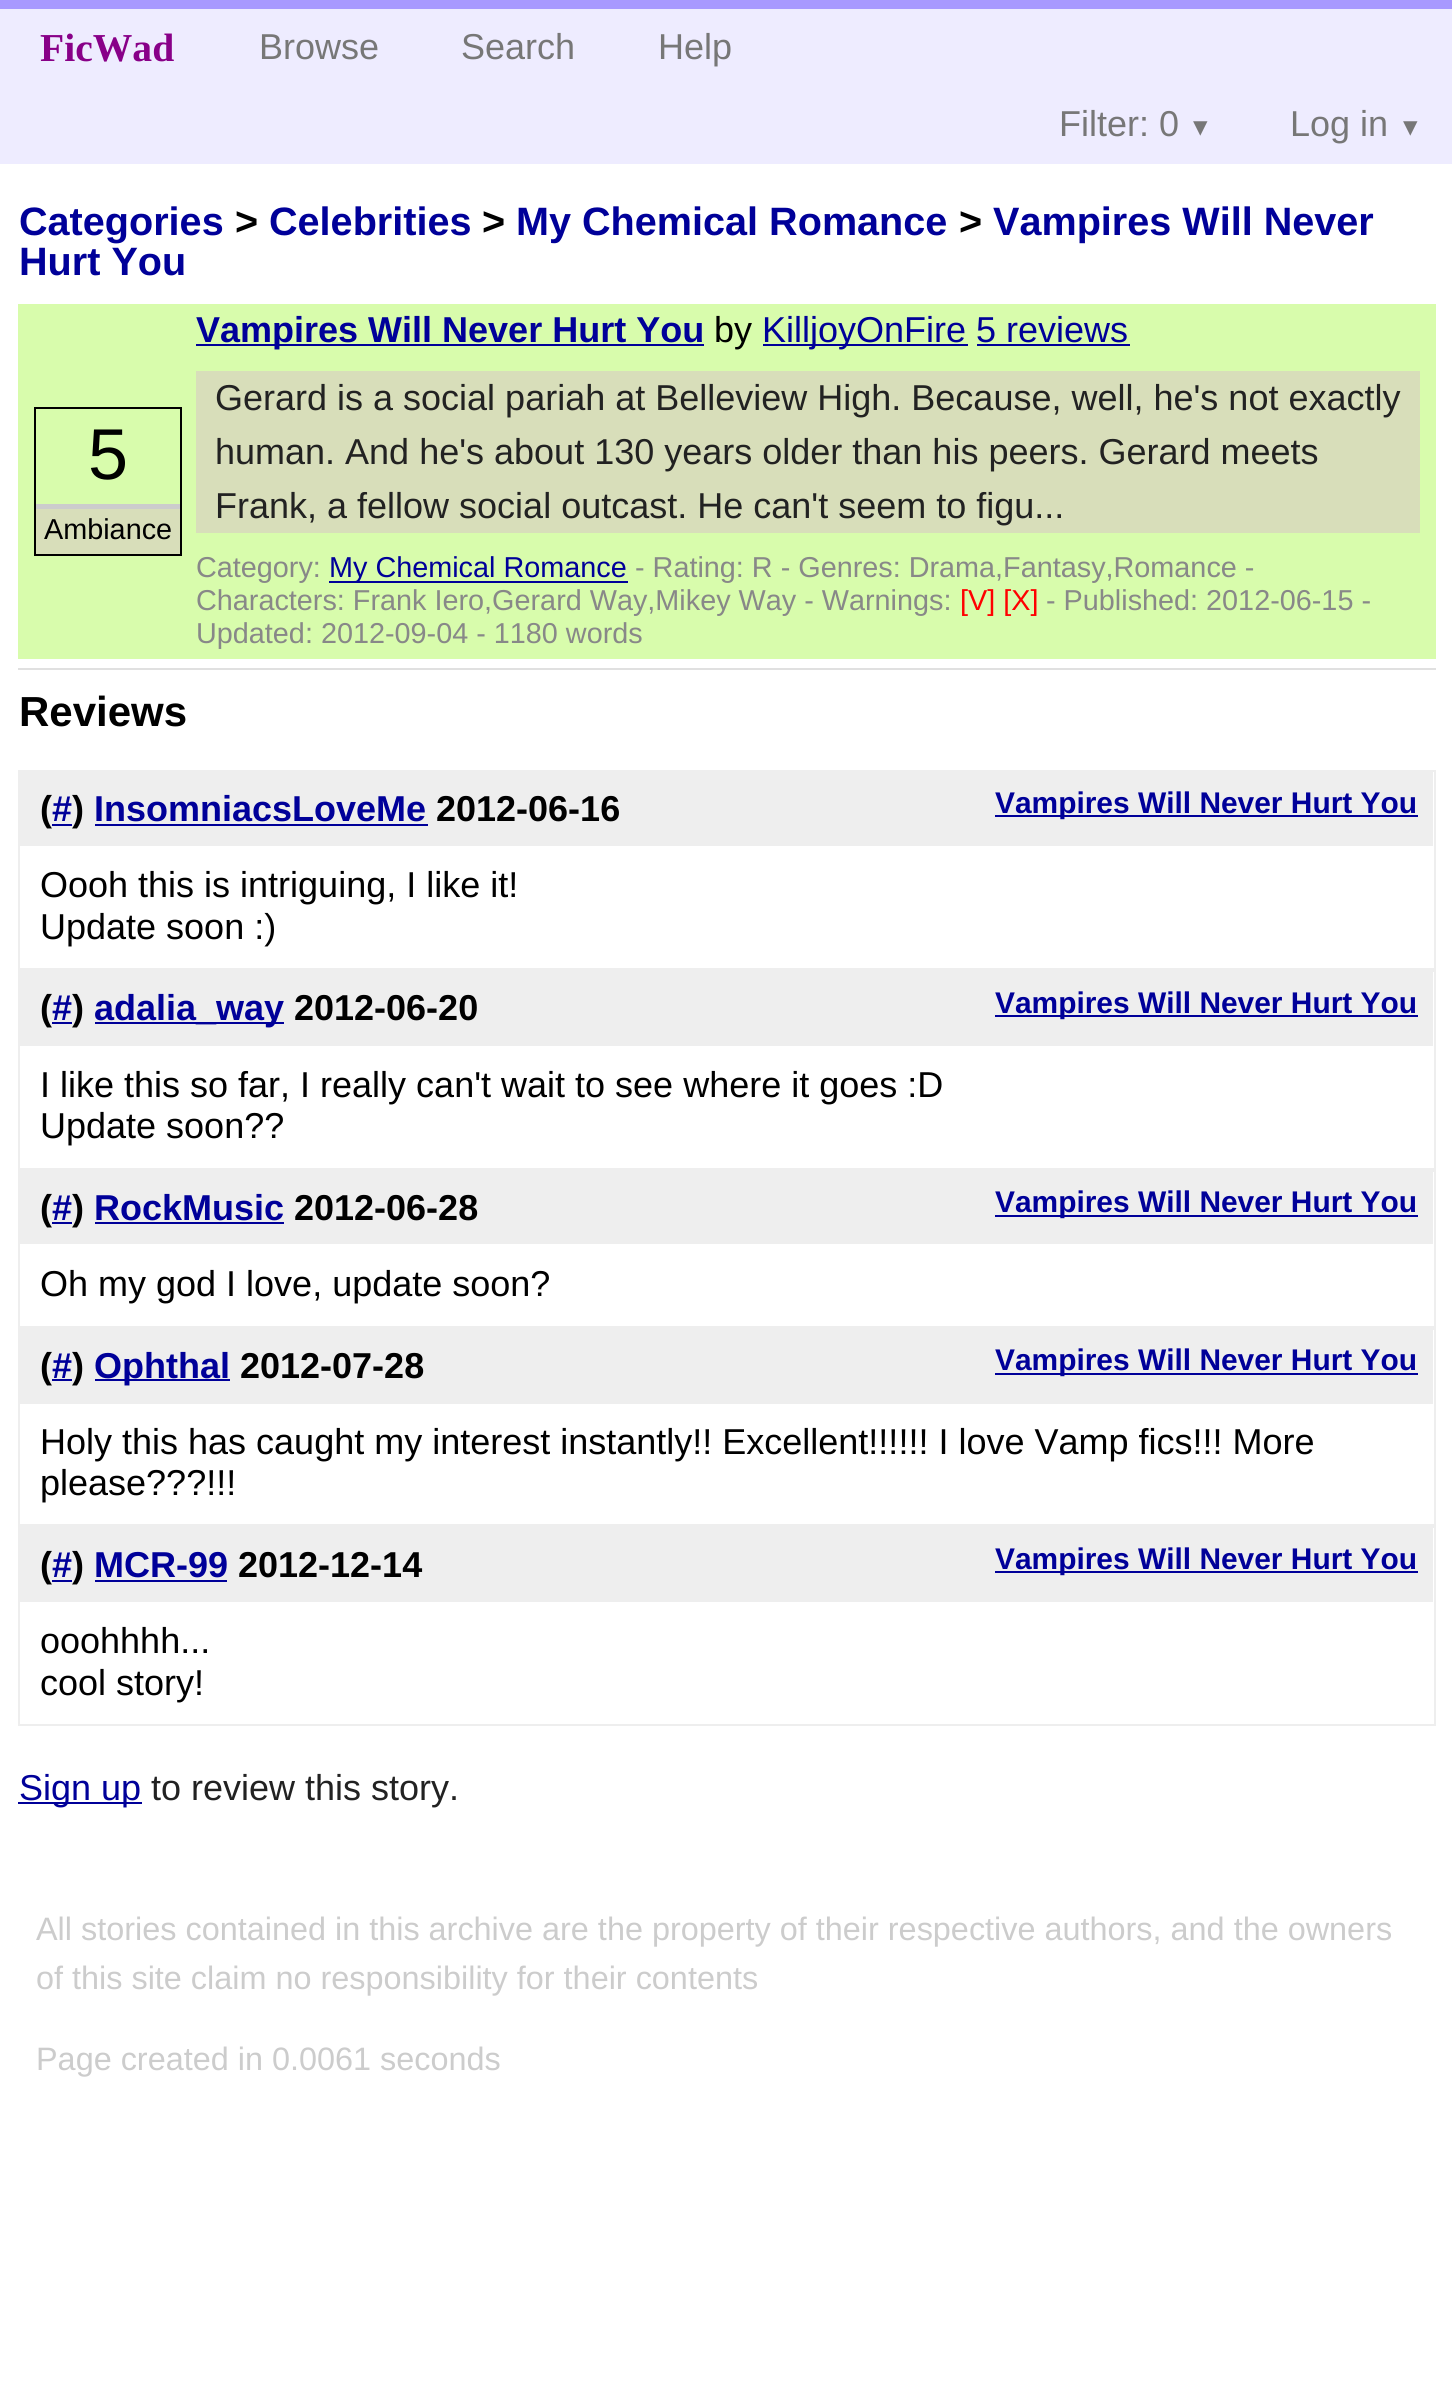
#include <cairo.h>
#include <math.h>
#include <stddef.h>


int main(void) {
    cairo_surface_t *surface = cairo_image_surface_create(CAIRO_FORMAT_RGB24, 1452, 2408);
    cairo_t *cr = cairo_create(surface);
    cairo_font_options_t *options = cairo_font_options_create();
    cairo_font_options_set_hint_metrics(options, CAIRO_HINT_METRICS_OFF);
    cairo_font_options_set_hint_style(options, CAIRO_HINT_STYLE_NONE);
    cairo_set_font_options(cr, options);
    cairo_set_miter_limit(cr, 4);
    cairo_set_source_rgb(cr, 1, 1, 1);
    cairo_paint(cr);
    cairo_set_source_rgb(cr, 0.933, 0.922, 1);
    cairo_rectangle(cr, 0, 9, 1452, 155);
    cairo_fill(cr);
    cairo_set_source_rgb(cr, 0.659, 0.6, 1);
    cairo_rectangle(cr, 0, 0, 1452, 9);
    cairo_fill(cr);
    cairo_select_font_face(cr, "Liberation Serif", CAIRO_FONT_SLANT_NORMAL, CAIRO_FONT_WEIGHT_BOLD);
    cairo_set_font_size(cr, 39.6);
    cairo_set_source_rgb(cr, 0.533, 0, 0.533);
    cairo_move_to(cr, 40, 61);
    cairo_show_text(cr, "FicWad");
    cairo_select_font_face(cr, "Liberation Sans", CAIRO_FONT_SLANT_NORMAL, CAIRO_FONT_WEIGHT_NORMAL);
    cairo_set_font_size(cr, 36);
    cairo_set_source_rgb(cr, 0.467, 0.467, 0.467);
    cairo_move_to(cr, 259, 59);
    cairo_show_text(cr, "Browse");
    cairo_move_to(cr, 461, 59);
    cairo_show_text(cr, "Search");
    cairo_move_to(cr, 658, 59);
    cairo_show_text(cr, "Help");
    cairo_move_to(cr, 1059, 136);
    cairo_show_text(cr, "Filter: 0");
    cairo_select_font_face(cr, "DejaVu Sans", CAIRO_FONT_SLANT_NORMAL, CAIRO_FONT_WEIGHT_NORMAL);
    cairo_set_font_size(cr, 29);
    cairo_move_to(cr, 1193, 136);
    cairo_show_text(cr, "▾");
    cairo_select_font_face(cr, "Liberation Sans", CAIRO_FONT_SLANT_NORMAL, CAIRO_FONT_WEIGHT_NORMAL);
    cairo_set_font_size(cr, 36);
    cairo_move_to(cr, 1290, 136);
    cairo_show_text(cr, "Log in");
    cairo_select_font_face(cr, "DejaVu Sans", CAIRO_FONT_SLANT_NORMAL, CAIRO_FONT_WEIGHT_NORMAL);
    cairo_set_font_size(cr, 29);
    cairo_move_to(cr, 1403, 136);
    cairo_show_text(cr, "▾");
    cairo_select_font_face(cr, "Liberation Sans", CAIRO_FONT_SLANT_NORMAL, CAIRO_FONT_WEIGHT_BOLD);
    cairo_set_font_size(cr, 39.6);
    cairo_set_source_rgb(cr, 0, 0, 0.6);
    cairo_move_to(cr, 19, 235);
    cairo_show_text(cr, "Categories");
    cairo_set_source_rgb(cr, 0, 0, 0);
    cairo_move_to(cr, 235, 235);
    cairo_show_text(cr, ">");
    cairo_set_source_rgb(cr, 0, 0, 0.6);
    cairo_move_to(cr, 269, 235);
    cairo_show_text(cr, "Celebrities");
    cairo_set_source_rgb(cr, 0, 0, 0);
    cairo_move_to(cr, 482, 235);
    cairo_show_text(cr, ">");
    cairo_set_source_rgb(cr, 0, 0, 0.6);
    cairo_move_to(cr, 516, 235);
    cairo_show_text(cr, "My Chemical Romance");
    cairo_set_source_rgb(cr, 0, 0, 0);
    cairo_move_to(cr, 959, 235);
    cairo_show_text(cr, ">");
    cairo_set_source_rgb(cr, 0, 0, 0.6);
    cairo_move_to(cr, 993, 235);
    cairo_show_text(cr, "Vampires Will Never");
    cairo_move_to(cr, 19, 275);
    cairo_show_text(cr, "Hurt You");
    cairo_set_source_rgb(cr, 0.878, 0.878, 0.878);
    cairo_rectangle(cr, 18, 668, 1418, 2);
    cairo_fill(cr);
    cairo_set_source_rgb(cr, 0.847, 0.988, 0.675);
    cairo_rectangle(cr, 18, 304, 1418, 355);
    cairo_fill(cr);
    cairo_set_source_rgb(cr, 0, 0, 0.6);
    cairo_rectangle(cr, 196, 344, 508, 2);
    cairo_fill(cr);
    cairo_set_font_size(cr, 36);
    cairo_move_to(cr, 196, 342);
    cairo_show_text(cr, "Vampires Will Never Hurt You");
    cairo_select_font_face(cr, "Liberation Sans", CAIRO_FONT_SLANT_NORMAL, CAIRO_FONT_WEIGHT_NORMAL);
    cairo_set_source_rgb(cr, 0, 0, 0);
    cairo_move_to(cr, 714, 342);
    cairo_show_text(cr, "by");
    cairo_set_source_rgb(cr, 0, 0, 0.6);
    cairo_rectangle(cr, 763, 344, 205, 2);
    cairo_fill(cr);
    cairo_move_to(cr, 762, 342);
    cairo_show_text(cr, "KilljoyOnFire 5 reviews");
    cairo_rectangle(cr, 977, 344, 153, 2);
    cairo_fill(cr);
    cairo_rectangle(cr, 35, 408, 146, 147);
    cairo_set_source_rgb(cr, 0, 0, 0);
    cairo_stroke(cr);
    cairo_set_font_size(cr, 72);
    cairo_move_to(cr, 88, 479);
    cairo_show_text(cr, "5");
    cairo_set_source_rgb(cr, 0.847, 0.871, 0.729);
    cairo_rectangle(cr, 36, 509, 144, 45);
    cairo_fill(cr);
    cairo_set_source_rgb(cr, 0.8, 0.8, 0.8);
    cairo_rectangle(cr, 36, 504, 144, 5);
    cairo_fill(cr);
    cairo_set_font_size(cr, 28.8);
    cairo_set_source_rgb(cr, 0, 0, 0);
    cairo_move_to(cr, 44, 539);
    cairo_show_text(cr, "Ambiance");
    cairo_set_source_rgb(cr, 0.847, 0.871, 0.729);
    cairo_rectangle(cr, 196, 371, 1224, 162);
    cairo_fill(cr);
    cairo_set_font_size(cr, 36);
    cairo_set_source_rgb(cr, 0.133, 0.133, 0.133);
    cairo_move_to(cr, 215, 410);
    cairo_show_text(cr, "Gerard is a social pariah at Belleview High. Because, well, he's not exactly");
    cairo_move_to(cr, 215, 464);
    cairo_show_text(cr, "human. And he's about 130 years older than his peers. Gerard meets");
    cairo_move_to(cr, 215, 518);
    cairo_show_text(cr, "Frank, a fellow social outcast. He can't seem to figu...");
    cairo_set_font_size(cr, 28.8);
    cairo_set_source_rgb(cr, 0.533, 0.533, 0.533);
    cairo_move_to(cr, 196, 577);
    cairo_show_text(cr, "Category:");
    cairo_set_source_rgb(cr, 0, 0, 0.6);
    cairo_rectangle(cr, 329, 581, 299, 2);
    cairo_fill(cr);
    cairo_move_to(cr, 329, 577);
    cairo_show_text(cr, "My Chemical Romance");
    cairo_set_source_rgb(cr, 0.533, 0.533, 0.533);
    cairo_move_to(cr, 635, 577);
    cairo_show_text(cr, "- Rating: R - Genres: Drama,Fantasy,Romance -");
    cairo_move_to(cr, 196, 610);
    cairo_show_text(cr, "Characters: Frank Iero,Gerard Way,Mikey Way - Warnings:");
    cairo_set_source_rgb(cr, 1, 0, 0);
    cairo_move_to(cr, 960, 610);
    cairo_show_text(cr, "[V] [X]");
    cairo_set_source_rgb(cr, 0.533, 0.533, 0.533);
    cairo_move_to(cr, 1046, 610);
    cairo_show_text(cr, "- Published: 2012-06-15 -");
    cairo_move_to(cr, 196, 643);
    cairo_show_text(cr, "Updated: 2012-09-04 - 1180 words");
    cairo_select_font_face(cr, "Liberation Sans", CAIRO_FONT_SLANT_NORMAL, CAIRO_FONT_WEIGHT_BOLD);
    cairo_set_font_size(cr, 42);
    cairo_set_source_rgb(cr, 0, 0, 0);
    cairo_move_to(cr, 19, 726);
    cairo_show_text(cr, "Reviews");
    cairo_rectangle(cr, 19, 771, 1416, 198);
    cairo_set_source_rgb(cr, 0.933, 0.933, 0.933);
    cairo_stroke(cr);
    cairo_rectangle(cr, 20, 772, 1413, 74);
    cairo_fill(cr);
    cairo_set_font_size(cr, 36);
    cairo_set_source_rgb(cr, 0, 0, 0);
    cairo_move_to(cr, 40, 821);
    cairo_show_text(cr, "(");
    cairo_set_source_rgb(cr, 0, 0, 0.6);
    cairo_move_to(cr, 52, 821);
    cairo_show_text(cr, "#");
    cairo_rectangle(cr, 52, 824, 20, 2);
    cairo_fill(cr);
    cairo_set_source_rgb(cr, 0, 0, 0);
    cairo_move_to(cr, 72, 821);
    cairo_show_text(cr, ")");
    cairo_set_source_rgb(cr, 0, 0, 0.6);
    cairo_move_to(cr, 94, 821);
    cairo_show_text(cr, "InsomniacsLoveMe");
    cairo_rectangle(cr, 95, 824, 333, 2);
    cairo_fill(cr);
    cairo_set_source_rgb(cr, 0, 0, 0);
    cairo_move_to(cr, 436, 821);
    cairo_show_text(cr, "2012-06-16");
    cairo_set_source_rgb(cr, 0, 0, 0.6);
    cairo_rectangle(cr, 995, 815, 423, 2);
    cairo_fill(cr);
    cairo_set_font_size(cr, 29.9);
    cairo_move_to(cr, 995, 813);
    cairo_show_text(cr, "Vampires Will Never Hurt You");
    cairo_select_font_face(cr, "Liberation Sans", CAIRO_FONT_SLANT_NORMAL, CAIRO_FONT_WEIGHT_NORMAL);
    cairo_set_font_size(cr, 36);
    cairo_set_source_rgb(cr, 0, 0, 0);
    cairo_move_to(cr, 40, 897);
    cairo_show_text(cr, "Oooh this is intriguing, I like it!");
    cairo_move_to(cr, 40, 939);
    cairo_show_text(cr, "Update soon :)");
    cairo_rectangle(cr, 19, 971, 1416, 198);
    cairo_set_source_rgb(cr, 0.933, 0.933, 0.933);
    cairo_stroke(cr);
    cairo_rectangle(cr, 20, 972, 1413, 74);
    cairo_fill(cr);
    cairo_select_font_face(cr, "Liberation Sans", CAIRO_FONT_SLANT_NORMAL, CAIRO_FONT_WEIGHT_BOLD);
    cairo_set_source_rgb(cr, 0, 0, 0);
    cairo_move_to(cr, 40, 1020);
    cairo_show_text(cr, "(");
    cairo_set_source_rgb(cr, 0, 0, 0.6);
    cairo_move_to(cr, 52, 1020);
    cairo_show_text(cr, "#");
    cairo_rectangle(cr, 52, 1022, 20, 2);
    cairo_fill(cr);
    cairo_set_source_rgb(cr, 0, 0, 0);
    cairo_move_to(cr, 72, 1020);
    cairo_show_text(cr, ")");
    cairo_set_source_rgb(cr, 0, 0, 0.6);
    cairo_rectangle(cr, 95, 1022, 189, 2);
    cairo_fill(cr);
    cairo_move_to(cr, 94, 1020);
    cairo_show_text(cr, "adalia_way");
    cairo_set_source_rgb(cr, 0, 0, 0);
    cairo_move_to(cr, 294, 1020);
    cairo_show_text(cr, "2012-06-20");
    cairo_set_source_rgb(cr, 0, 0, 0.6);
    cairo_rectangle(cr, 995, 1015, 423, 2);
    cairo_fill(cr);
    cairo_set_font_size(cr, 29.9);
    cairo_move_to(cr, 995, 1013);
    cairo_show_text(cr, "Vampires Will Never Hurt You");
    cairo_select_font_face(cr, "Liberation Sans", CAIRO_FONT_SLANT_NORMAL, CAIRO_FONT_WEIGHT_NORMAL);
    cairo_set_font_size(cr, 36);
    cairo_set_source_rgb(cr, 0, 0, 0);
    cairo_move_to(cr, 40, 1097);
    cairo_show_text(cr, "I like this so far, I really can't wait to see where it goes :D");
    cairo_move_to(cr, 40, 1138);
    cairo_show_text(cr, "Update soon?\077");
    cairo_rectangle(cr, 19, 1171, 1416, 156);
    cairo_set_source_rgb(cr, 0.933, 0.933, 0.933);
    cairo_stroke(cr);
    cairo_rectangle(cr, 20, 1172, 1413, 72);
    cairo_fill(cr);
    cairo_select_font_face(cr, "Liberation Sans", CAIRO_FONT_SLANT_NORMAL, CAIRO_FONT_WEIGHT_BOLD);
    cairo_set_source_rgb(cr, 0, 0, 0);
    cairo_move_to(cr, 40, 1220);
    cairo_show_text(cr, "(");
    cairo_set_source_rgb(cr, 0, 0, 0.6);
    cairo_move_to(cr, 52, 1220);
    cairo_show_text(cr, "#");
    cairo_rectangle(cr, 52, 1222, 20, 2);
    cairo_fill(cr);
    cairo_set_source_rgb(cr, 0, 0, 0);
    cairo_move_to(cr, 72, 1220);
    cairo_show_text(cr, ")");
    cairo_set_source_rgb(cr, 0, 0, 0.6);
    cairo_move_to(cr, 94, 1220);
    cairo_show_text(cr, "RockMusic");
    cairo_rectangle(cr, 95, 1222, 189, 2);
    cairo_fill(cr);
    cairo_set_source_rgb(cr, 0, 0, 0);
    cairo_move_to(cr, 294, 1220);
    cairo_show_text(cr, "2012-06-28");
    cairo_set_source_rgb(cr, 0, 0, 0.6);
    cairo_rectangle(cr, 995, 1215, 423, 2);
    cairo_fill(cr);
    cairo_set_font_size(cr, 29.9);
    cairo_move_to(cr, 995, 1212);
    cairo_show_text(cr, "Vampires Will Never Hurt You");
    cairo_select_font_face(cr, "Liberation Sans", CAIRO_FONT_SLANT_NORMAL, CAIRO_FONT_WEIGHT_NORMAL);
    cairo_set_font_size(cr, 36);
    cairo_set_source_rgb(cr, 0, 0, 0);
    cairo_move_to(cr, 40, 1296);
    cairo_show_text(cr, "Oh my god I love, update soon?");
    cairo_rectangle(cr, 19, 1329, 1416, 196);
    cairo_set_source_rgb(cr, 0.933, 0.933, 0.933);
    cairo_stroke(cr);
    cairo_rectangle(cr, 20, 1330, 1413, 74);
    cairo_fill(cr);
    cairo_select_font_face(cr, "Liberation Sans", CAIRO_FONT_SLANT_NORMAL, CAIRO_FONT_WEIGHT_BOLD);
    cairo_set_source_rgb(cr, 0, 0, 0);
    cairo_move_to(cr, 40, 1378);
    cairo_show_text(cr, "(");
    cairo_set_source_rgb(cr, 0, 0, 0.6);
    cairo_move_to(cr, 52, 1378);
    cairo_show_text(cr, "#");
    cairo_rectangle(cr, 52, 1379, 20, 2);
    cairo_fill(cr);
    cairo_set_source_rgb(cr, 0, 0, 0);
    cairo_move_to(cr, 72, 1378);
    cairo_show_text(cr, ")");
    cairo_set_source_rgb(cr, 0, 0, 0.6);
    cairo_rectangle(cr, 95, 1379, 135, 2);
    cairo_fill(cr);
    cairo_move_to(cr, 94, 1378);
    cairo_show_text(cr, "Ophthal");
    cairo_set_source_rgb(cr, 0, 0, 0);
    cairo_move_to(cr, 240, 1378);
    cairo_show_text(cr, "2012-07-28");
    cairo_set_source_rgb(cr, 0, 0, 0.6);
    cairo_rectangle(cr, 995, 1373, 423, 2);
    cairo_fill(cr);
    cairo_set_font_size(cr, 29.9);
    cairo_move_to(cr, 995, 1370);
    cairo_show_text(cr, "Vampires Will Never Hurt You");
    cairo_select_font_face(cr, "Liberation Sans", CAIRO_FONT_SLANT_NORMAL, CAIRO_FONT_WEIGHT_NORMAL);
    cairo_set_font_size(cr, 36);
    cairo_set_source_rgb(cr, 0, 0, 0);
    cairo_move_to(cr, 40, 1454);
    cairo_show_text(cr, "Holy this has caught my interest instantly!! Excellent!!!!!! I love Vamp fics!!! More");
    cairo_move_to(cr, 40, 1495);
    cairo_show_text(cr, "please?\077?!!!");
    cairo_rectangle(cr, 19, 1527, 1416, 198);
    cairo_set_source_rgb(cr, 0.933, 0.933, 0.933);
    cairo_stroke(cr);
    cairo_rectangle(cr, 20, 1528, 1413, 74);
    cairo_fill(cr);
    cairo_select_font_face(cr, "Liberation Sans", CAIRO_FONT_SLANT_NORMAL, CAIRO_FONT_WEIGHT_BOLD);
    cairo_set_source_rgb(cr, 0, 0, 0);
    cairo_move_to(cr, 40, 1577);
    cairo_show_text(cr, "(");
    cairo_set_source_rgb(cr, 0, 0, 0.6);
    cairo_move_to(cr, 52, 1577);
    cairo_show_text(cr, "#");
    cairo_rectangle(cr, 52, 1580, 20, 2);
    cairo_fill(cr);
    cairo_set_source_rgb(cr, 0, 0, 0);
    cairo_move_to(cr, 72, 1577);
    cairo_show_text(cr, ")");
    cairo_set_source_rgb(cr, 0, 0, 0.6);
    cairo_move_to(cr, 94, 1577);
    cairo_show_text(cr, "MCR-99");
    cairo_rectangle(cr, 95, 1580, 132, 2);
    cairo_fill(cr);
    cairo_set_source_rgb(cr, 0, 0, 0);
    cairo_move_to(cr, 238, 1577);
    cairo_show_text(cr, "2012-12-14");
    cairo_set_source_rgb(cr, 0, 0, 0.6);
    cairo_rectangle(cr, 995, 1571, 423, 2);
    cairo_fill(cr);
    cairo_set_font_size(cr, 29.9);
    cairo_move_to(cr, 995, 1569);
    cairo_show_text(cr, "Vampires Will Never Hurt You");
    cairo_select_font_face(cr, "Liberation Sans", CAIRO_FONT_SLANT_NORMAL, CAIRO_FONT_WEIGHT_NORMAL);
    cairo_set_font_size(cr, 36);
    cairo_set_source_rgb(cr, 0, 0, 0);
    cairo_move_to(cr, 40, 1653);
    cairo_show_text(cr, "ooohhhh...");
    cairo_move_to(cr, 40, 1695);
    cairo_show_text(cr, "cool story!");
    cairo_set_source_rgb(cr, 0, 0, 0.6);
    cairo_rectangle(cr, 18, 1802, 124, 2);
    cairo_fill(cr);
    cairo_move_to(cr, 19, 1800);
    cairo_show_text(cr, "Sign up");
    cairo_set_source_rgb(cr, 0.133, 0.133, 0.133);
    cairo_move_to(cr, 151, 1800);
    cairo_show_text(cr, "to review this story.");
    cairo_set_font_size(cr, 32.4);
    cairo_set_source_rgb(cr, 0.8, 0.8, 0.8);
    cairo_move_to(cr, 36, 1940);
    cairo_show_text(cr, "All stories contained in this archive are the property of their respective authors, and the owners");
    cairo_move_to(cr, 36, 1989);
    cairo_show_text(cr, "of this site claim no responsibility for their contents");
    cairo_move_to(cr, 36, 2070);
    cairo_show_text(cr, "Page created in 0.0061 seconds");
    cairo_surface_write_to_png(surface, "page.png");
    cairo_font_options_destroy(options);
    cairo_destroy(cr);
    cairo_surface_destroy(surface);
    return 0;
}
